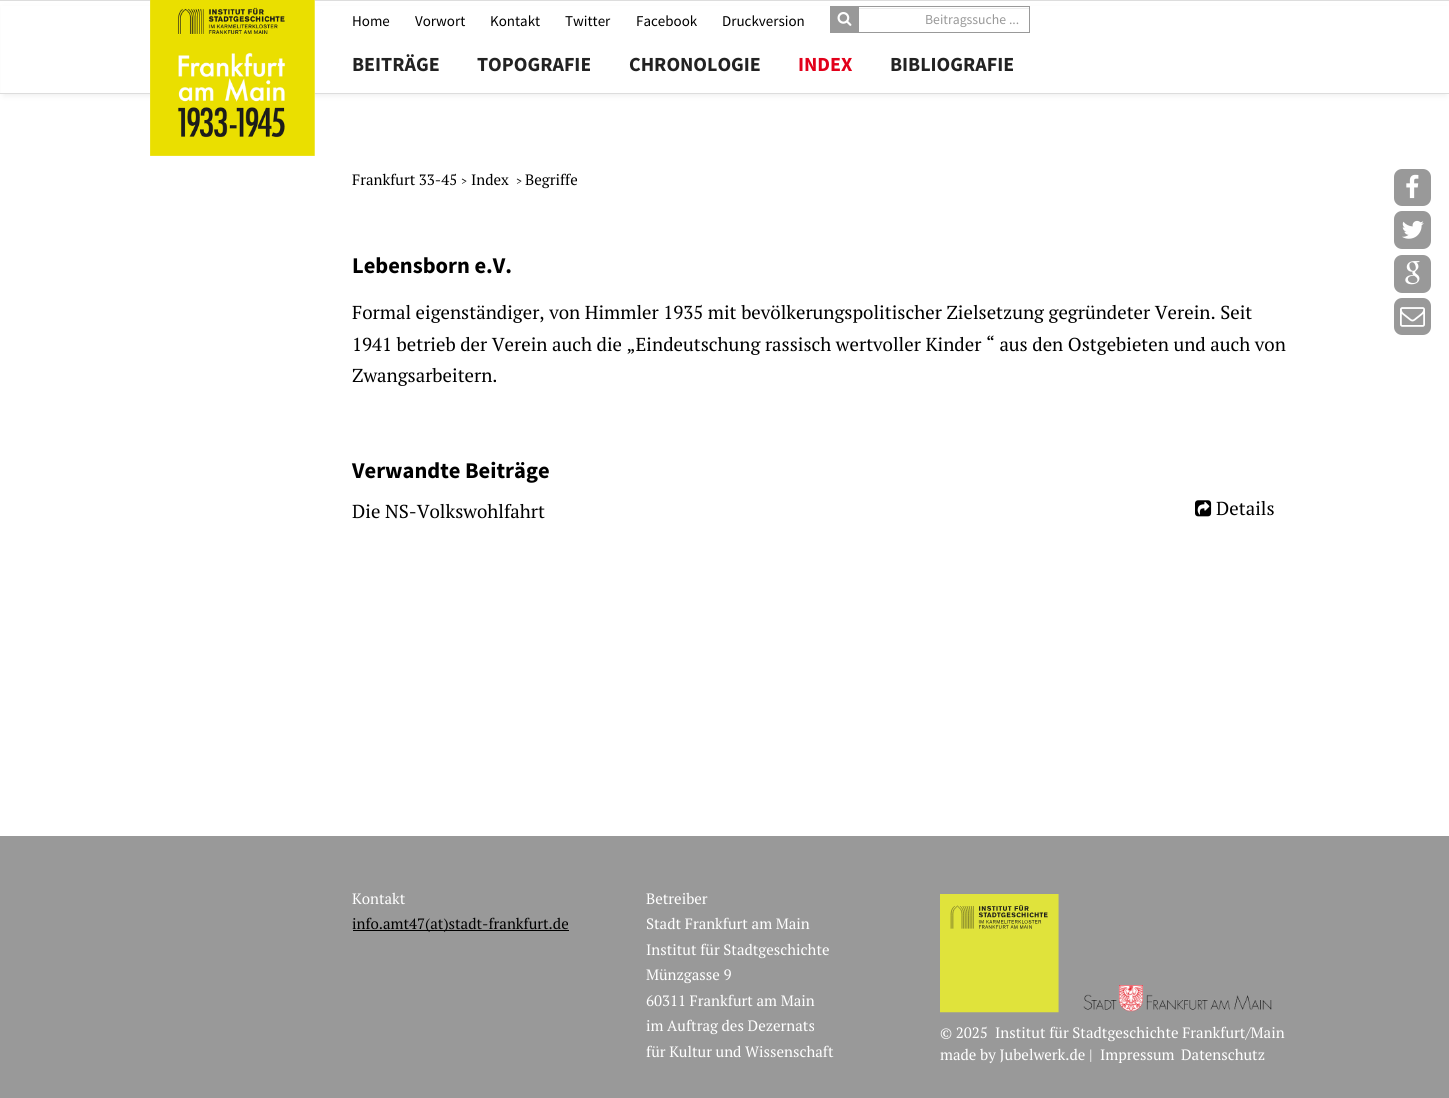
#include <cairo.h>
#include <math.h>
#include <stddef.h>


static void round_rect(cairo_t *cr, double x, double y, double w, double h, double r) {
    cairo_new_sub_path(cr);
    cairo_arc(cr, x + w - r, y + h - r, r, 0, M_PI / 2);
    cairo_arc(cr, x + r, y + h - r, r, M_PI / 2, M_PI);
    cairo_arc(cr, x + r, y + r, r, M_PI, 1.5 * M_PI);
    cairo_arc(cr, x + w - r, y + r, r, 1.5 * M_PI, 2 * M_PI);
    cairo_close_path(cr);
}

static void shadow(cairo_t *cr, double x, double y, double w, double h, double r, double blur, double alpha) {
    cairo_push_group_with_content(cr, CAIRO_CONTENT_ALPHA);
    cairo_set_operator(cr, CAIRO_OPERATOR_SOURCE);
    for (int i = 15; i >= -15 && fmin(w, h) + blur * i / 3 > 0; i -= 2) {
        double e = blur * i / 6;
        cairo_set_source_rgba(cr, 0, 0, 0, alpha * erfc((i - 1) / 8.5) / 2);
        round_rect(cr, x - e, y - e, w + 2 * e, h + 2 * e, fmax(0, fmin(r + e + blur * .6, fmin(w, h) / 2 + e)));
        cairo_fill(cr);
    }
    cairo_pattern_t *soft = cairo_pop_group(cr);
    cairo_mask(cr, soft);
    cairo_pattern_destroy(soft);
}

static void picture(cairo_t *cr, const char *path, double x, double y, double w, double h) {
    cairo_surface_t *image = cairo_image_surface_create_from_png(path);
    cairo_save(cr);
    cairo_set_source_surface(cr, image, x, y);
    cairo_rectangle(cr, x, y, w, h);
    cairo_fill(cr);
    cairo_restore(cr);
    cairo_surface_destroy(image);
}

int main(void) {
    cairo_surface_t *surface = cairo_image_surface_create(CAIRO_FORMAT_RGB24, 1449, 1098);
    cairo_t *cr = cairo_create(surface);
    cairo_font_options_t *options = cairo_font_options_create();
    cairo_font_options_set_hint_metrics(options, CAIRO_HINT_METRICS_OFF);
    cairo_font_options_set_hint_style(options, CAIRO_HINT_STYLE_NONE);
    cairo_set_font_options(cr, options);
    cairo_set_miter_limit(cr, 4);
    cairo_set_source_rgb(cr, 1, 1, 1);
    cairo_paint(cr);
    cairo_set_source_rgb(cr, 0.925, 0.925, 0.925);
    shadow(cr, 4, 9, 1442, 86, 0, 3, 1);
    cairo_set_source_rgb(cr, 1, 1, 1);
    cairo_rectangle(cr, 1, 6, 1448, 87);
    cairo_fill(cr);
    cairo_set_source_rgb(cr, 0.867, 0.867, 0.867);
    cairo_rectangle(cr, 0, 0, 1449, 1);
    cairo_fill(cr);
    cairo_rectangle(cr, 0, 93, 1449, 1);
    cairo_fill(cr);
    picture(cr, "img1.png", 150, 0, 165, 156);
    cairo_select_font_face(cr, "Source Sans Pro", CAIRO_FONT_SLANT_NORMAL, CAIRO_FONT_WEIGHT_NORMAL);
    cairo_set_font_size(cr, 15);
    cairo_set_source_rgb(cr, 0, 0, 0);
    cairo_move_to(cr, 352, 26);
    cairo_show_text(cr, "Home");
    cairo_move_to(cr, 415, 26);
    cairo_show_text(cr, "Vorwort");
    cairo_move_to(cr, 490, 26);
    cairo_show_text(cr, "Kontakt");
    cairo_move_to(cr, 565, 26);
    cairo_show_text(cr, "Twitter");
    cairo_move_to(cr, 636, 26);
    cairo_show_text(cr, "Facebook");
    cairo_move_to(cr, 722, 26);
    cairo_show_text(cr, "Druckversion");
    cairo_set_source_rgb(cr, 0.6, 0.6, 0.6);
    cairo_rectangle(cr, 830, 6, 28, 27);
    cairo_fill(cr);
    picture(cr, "img2.png", 837, 12, 15, 14);
    cairo_set_source_rgb(cr, 0.925, 0.925, 0.925);
    cairo_rectangle(cr, 859, 8, 170, 1);
    cairo_fill(cr);
    cairo_rectangle(cr, 858.5, 6.5, 171, 26);
    cairo_set_source_rgb(cr, 0.6, 0.6, 0.6);
    cairo_set_line_width(cr, 1);
    cairo_stroke(cr);
    cairo_set_font_size(cr, 13.75);
    cairo_move_to(cr, 925, 24);
    cairo_show_text(cr, "Beitragssuche ...");
    cairo_select_font_face(cr, "Source Sans Pro", CAIRO_FONT_SLANT_NORMAL, CAIRO_FONT_WEIGHT_BOLD);
    cairo_set_font_size(cr, 20);
    cairo_set_source_rgb(cr, 0.133, 0.133, 0.133);
    cairo_move_to(cr, 352, 71);
    cairo_show_text(cr, "BEITRÄGE");
    cairo_move_to(cr, 477, 71);
    cairo_show_text(cr, "TOPOGRAFIE");
    cairo_move_to(cr, 629, 71);
    cairo_show_text(cr, "CHRONOLOGIE");
    cairo_set_source_rgb(cr, 0.886, 0, 0.102);
    cairo_move_to(cr, 798, 71);
    cairo_show_text(cr, "INDEX");
    cairo_set_source_rgb(cr, 0.133, 0.133, 0.133);
    cairo_move_to(cr, 890, 71);
    cairo_show_text(cr, "BIBLIOGRAFIE");
    cairo_select_font_face(cr, "PT Serif", CAIRO_FONT_SLANT_NORMAL, CAIRO_FONT_WEIGHT_NORMAL);
    cairo_set_font_size(cr, 15);
    cairo_set_source_rgb(cr, 0, 0, 0);
    cairo_move_to(cr, 352, 185);
    cairo_show_text(cr, "Frankfurt 33-45");
    cairo_set_font_size(cr, 11);
    cairo_move_to(cr, 461, 185);
    cairo_show_text(cr, ">");
    cairo_set_font_size(cr, 15);
    cairo_move_to(cr, 471, 185);
    cairo_show_text(cr, "Index");
    cairo_set_font_size(cr, 11);
    cairo_move_to(cr, 516, 185);
    cairo_show_text(cr, ">");
    cairo_set_font_size(cr, 15);
    cairo_move_to(cr, 525, 185);
    cairo_show_text(cr, "Begriffe");
    cairo_select_font_face(cr, "Source Sans Pro", CAIRO_FONT_SLANT_NORMAL, CAIRO_FONT_WEIGHT_BOLD);
    cairo_set_font_size(cr, 22.5);
    cairo_move_to(cr, 352, 273);
    cairo_show_text(cr, "Lebensborn e.V.");
    cairo_select_font_face(cr, "PT Serif", CAIRO_FONT_SLANT_NORMAL, CAIRO_FONT_WEIGHT_NORMAL);
    cairo_set_font_size(cr, 18.75);
    cairo_move_to(cr, 352, 319);
    cairo_show_text(cr, "Formal eigenständiger, von Himmler 1935 mit bevölkerungspolitischer Zielsetzung gegründeter Verein. Seit");
    cairo_move_to(cr, 352, 351);
    cairo_show_text(cr, "1941 betrieb der Verein auch die „Eindeutschung rassisch wertvoller Kinder “ aus den Ostgebieten und auch von");
    cairo_move_to(cr, 352, 382);
    cairo_show_text(cr, "Zwangsarbeitern.");
    cairo_select_font_face(cr, "Source Sans Pro", CAIRO_FONT_SLANT_NORMAL, CAIRO_FONT_WEIGHT_BOLD);
    cairo_set_font_size(cr, 22.5);
    cairo_move_to(cr, 352, 478);
    cairo_show_text(cr, "Verwandte Beiträge");
    cairo_select_font_face(cr, "PT Serif", CAIRO_FONT_SLANT_NORMAL, CAIRO_FONT_WEIGHT_NORMAL);
    cairo_set_font_size(cr, 18.75);
    cairo_move_to(cr, 352, 518);
    cairo_show_text(cr, "Die NS-Volkswohlfahrt");
    picture(cr, "img3.png", 1195, 500, 17, 17);
    cairo_move_to(cr, 1216, 515);
    cairo_show_text(cr, "Details");
    cairo_set_source_rgb(cr, 0.6, 0.6, 0.6);
    round_rect(cr, 1394, 169, 37, 37, 8);
    cairo_fill(cr);
    picture(cr, "img4.png", 1406, 174, 13, 25);
    round_rect(cr, 1394, 211, 37, 38, 8);
    cairo_fill(cr);
    picture(cr, "img5.png", 1402, 220, 22, 19);
    round_rect(cr, 1394, 255, 37, 38, 8);
    cairo_fill(cr);
    picture(cr, "img6.png", 1405, 261, 15, 24);
    round_rect(cr, 1394, 298, 37, 37, 8);
    cairo_fill(cr);
    picture(cr, "img7.png", 1400, 307, 25, 20);
    cairo_rectangle(cr, 0, 836, 1449, 262);
    cairo_fill(cr);
    cairo_set_font_size(cr, 15);
    cairo_set_source_rgb(cr, 1, 1, 1);
    cairo_move_to(cr, 352, 904);
    cairo_show_text(cr, "Kontakt");
    cairo_set_source_rgb(cr, 0, 0, 0);
    cairo_rectangle(cr, 353, 930, 216, 1);
    cairo_fill(cr);
    cairo_move_to(cr, 352, 929);
    cairo_show_text(cr, "info.amt47(at)stadt-frankfurt.de");
    cairo_set_source_rgb(cr, 1, 1, 1);
    cairo_move_to(cr, 646, 904);
    cairo_show_text(cr, "Betreiber");
    cairo_move_to(cr, 646, 929);
    cairo_show_text(cr, "Stadt Frankfurt am Main");
    cairo_move_to(cr, 646, 955);
    cairo_show_text(cr, "Institut für Stadtgeschichte");
    cairo_move_to(cr, 646, 980);
    cairo_show_text(cr, "Münzgasse 9");
    cairo_move_to(cr, 646, 1006);
    cairo_show_text(cr, "60311 Frankfurt am Main");
    cairo_move_to(cr, 646, 1031);
    cairo_show_text(cr, "im Auftrag des Dezernats");
    cairo_move_to(cr, 646, 1057);
    cairo_show_text(cr, "für Kultur und Wissenschaft");
    picture(cr, "img8.png", 940, 894, 119, 119);
    picture(cr, "img9.png", 1083, 985, 189, 27);
    cairo_move_to(cr, 940, 1038);
    cairo_show_text(cr, "© 2025  Institut für Stadtgeschichte Frankfurt/Main");
    cairo_move_to(cr, 940, 1060);
    cairo_show_text(cr, "made by Jubelwerk.de |");
    cairo_move_to(cr, 1100, 1060);
    cairo_show_text(cr, "Impressum");
    cairo_move_to(cr, 1181, 1060);
    cairo_show_text(cr, "Datenschutz");
    cairo_surface_write_to_png(surface, "page.png");
    cairo_font_options_destroy(options);
    cairo_destroy(cr);
    cairo_surface_destroy(surface);
    return 0;
}
